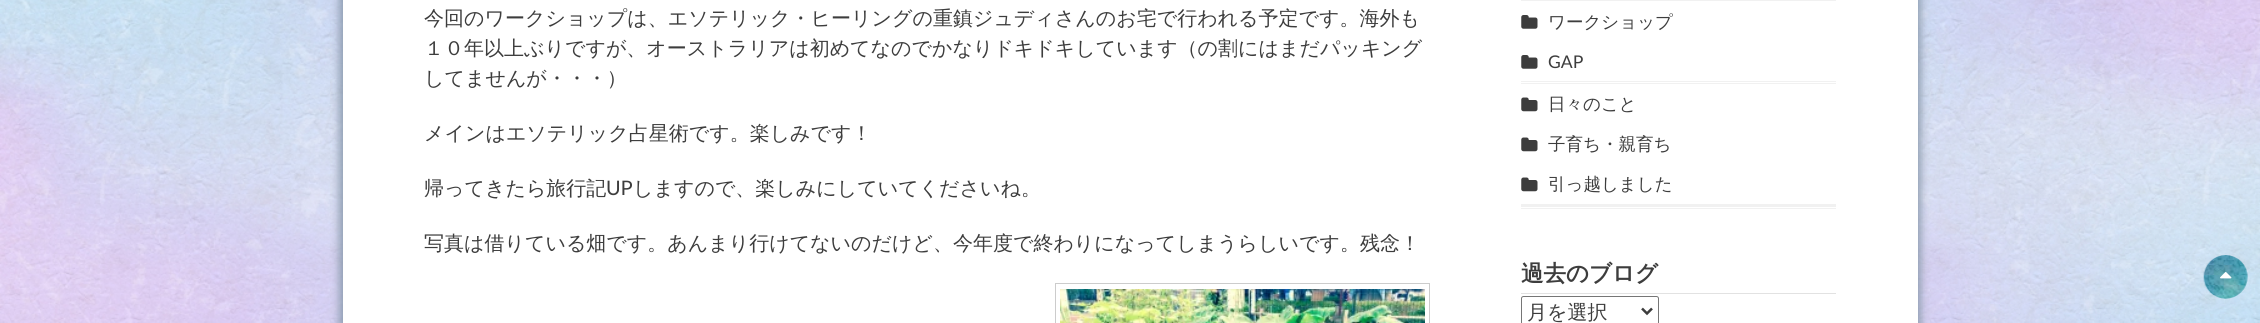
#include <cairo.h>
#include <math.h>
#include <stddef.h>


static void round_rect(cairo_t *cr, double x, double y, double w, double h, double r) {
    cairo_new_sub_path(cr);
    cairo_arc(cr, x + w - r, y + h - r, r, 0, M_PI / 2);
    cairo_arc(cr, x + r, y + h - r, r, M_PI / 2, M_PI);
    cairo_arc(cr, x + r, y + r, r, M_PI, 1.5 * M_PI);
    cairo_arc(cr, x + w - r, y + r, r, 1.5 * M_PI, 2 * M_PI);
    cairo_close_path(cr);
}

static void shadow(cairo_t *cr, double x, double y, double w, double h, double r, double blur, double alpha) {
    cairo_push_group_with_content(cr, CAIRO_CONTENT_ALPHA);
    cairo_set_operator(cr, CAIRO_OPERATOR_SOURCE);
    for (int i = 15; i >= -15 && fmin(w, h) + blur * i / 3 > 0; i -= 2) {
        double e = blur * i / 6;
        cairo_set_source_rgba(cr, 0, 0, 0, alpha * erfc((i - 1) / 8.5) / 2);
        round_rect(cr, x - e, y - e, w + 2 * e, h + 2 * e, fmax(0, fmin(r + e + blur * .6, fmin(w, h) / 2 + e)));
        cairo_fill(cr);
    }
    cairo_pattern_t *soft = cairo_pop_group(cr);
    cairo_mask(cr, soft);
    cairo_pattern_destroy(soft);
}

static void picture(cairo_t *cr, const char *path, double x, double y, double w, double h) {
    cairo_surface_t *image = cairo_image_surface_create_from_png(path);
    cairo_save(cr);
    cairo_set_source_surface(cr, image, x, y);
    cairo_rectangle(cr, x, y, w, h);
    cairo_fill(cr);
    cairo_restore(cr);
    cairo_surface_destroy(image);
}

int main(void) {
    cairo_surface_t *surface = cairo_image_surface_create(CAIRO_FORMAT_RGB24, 2260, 323);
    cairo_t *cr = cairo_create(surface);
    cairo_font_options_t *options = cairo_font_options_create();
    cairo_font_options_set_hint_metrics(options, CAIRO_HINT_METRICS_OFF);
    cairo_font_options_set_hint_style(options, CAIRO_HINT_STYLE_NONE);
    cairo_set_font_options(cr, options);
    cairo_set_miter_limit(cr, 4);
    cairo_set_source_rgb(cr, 1, 1, 1);
    cairo_paint(cr);
    picture(cr, "img1.png", 0, 0, 2260, 323);
    cairo_set_source_rgb(cr, 0.78, 0.78, 0.78);
    shadow(cr, 343, -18, 1575, 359, 0, 6, 1);
    cairo_set_source_rgb(cr, 0.443, 0.529, 0.643);
    shadow(cr, 339, -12, 1582, 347, 0, 4, 0.65);
    cairo_set_source_rgb(cr, 1, 1, 1);
    cairo_rectangle(cr, 343, 0, 1575, 323);
    cairo_fill(cr);
    cairo_select_font_face(cr, "WenQuanYi Zen Hei Medium", CAIRO_FONT_SLANT_NORMAL, CAIRO_FONT_WEIGHT_NORMAL);
    cairo_set_font_size(cr, 20);
    cairo_set_source_rgb(cr, 0.239, 0.239, 0.239);
    cairo_move_to(cr, 424, 25);
    cairo_show_text(cr, "今回のワークショップは、エソテリック・ヒーリングの重鎮ジュディさんのお宅で行われる予定です。海外も");
    cairo_move_to(cr, 424, 55);
    cairo_show_text(cr, "１０年以上ぶりですが、オーストラリアは初めてなのでかなりドキドキしています（の割にはまだパッキング");
    cairo_move_to(cr, 424, 85);
    cairo_show_text(cr, "してませんが・・・）");
    cairo_move_to(cr, 424, 140);
    cairo_show_text(cr, "メインはエソテリック占星術です。楽しみです！");
    cairo_move_to(cr, 424, 195);
    cairo_show_text(cr, "帰ってきたら旅行記");
    cairo_select_font_face(cr, "Lato", CAIRO_FONT_SLANT_NORMAL, CAIRO_FONT_WEIGHT_NORMAL);
    cairo_move_to(cr, 606, 195);
    cairo_show_text(cr, "UP");
    cairo_select_font_face(cr, "WenQuanYi Zen Hei Medium", CAIRO_FONT_SLANT_NORMAL, CAIRO_FONT_WEIGHT_NORMAL);
    cairo_move_to(cr, 633, 195);
    cairo_show_text(cr, "しますので、楽しみにしていてくださいね。");
    cairo_move_to(cr, 424, 250);
    cairo_show_text(cr, "写真は借りている畑です。あんまり行けてないのだけど、今年度で終わりになってしまうらしいです。残念！");
    cairo_rectangle(cr, 1055.5, 283.5, 374, 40);
    cairo_set_source_rgb(cr, 0.8, 0.8, 0.8);
    cairo_set_line_width(cr, 1);
    cairo_stroke(cr);
    picture(cr, "img2.png", 1060, 289, 365, 34);
    cairo_set_source_rgb(cr, 0.945, 0.945, 0.945);
    cairo_rectangle(cr, 1521, 208, 315, 1);
    cairo_fill(cr);
    cairo_rectangle(cr, 1521, 0, 315, 1);
    cairo_fill(cr);
    cairo_rectangle(cr, 1521, 83, 315, 1);
    cairo_fill(cr);
    picture(cr, "img3.png", 1521, 15, 17, 14);
    cairo_set_font_size(cr, 17.5);
    cairo_set_source_rgb(cr, 0.239, 0.239, 0.239);
    cairo_move_to(cr, 1548, 28);
    cairo_show_text(cr, "ワークショップ");
    cairo_set_source_rgb(cr, 0.945, 0.945, 0.945);
    cairo_rectangle(cr, 1521, 81, 315, 1);
    cairo_fill(cr);
    picture(cr, "img3.png", 1521, 55, 17, 14);
    cairo_select_font_face(cr, "Lato", CAIRO_FONT_SLANT_NORMAL, CAIRO_FONT_WEIGHT_NORMAL);
    cairo_set_source_rgb(cr, 0.239, 0.239, 0.239);
    cairo_move_to(cr, 1548, 68);
    cairo_show_text(cr, "GAP");
    cairo_set_source_rgb(cr, 0.945, 0.945, 0.945);
    cairo_rectangle(cr, 1521, 204, 315, 3);
    cairo_fill(cr);
    picture(cr, "img4.png", 1521, 97, 17, 15);
    cairo_select_font_face(cr, "WenQuanYi Zen Hei Medium", CAIRO_FONT_SLANT_NORMAL, CAIRO_FONT_WEIGHT_NORMAL);
    cairo_set_source_rgb(cr, 0.239, 0.239, 0.239);
    cairo_move_to(cr, 1548, 110);
    cairo_show_text(cr, "日々のこと");
    picture(cr, "img4.png", 1521, 137, 17, 15);
    cairo_move_to(cr, 1548, 150);
    cairo_show_text(cr, "子育ち・親育ち");
    picture(cr, "img4.png", 1521, 177, 17, 15);
    cairo_move_to(cr, 1548, 190);
    cairo_show_text(cr, "引っ越しました");
    cairo_set_source_rgb(cr, 0.886, 0.886, 0.886);
    cairo_rectangle(cr, 1521, 293, 315, 1);
    cairo_fill(cr);
    cairo_select_font_face(cr, "WenQuanYi Zen Hei", CAIRO_FONT_SLANT_NORMAL, CAIRO_FONT_WEIGHT_BOLD);
    cairo_set_font_size(cr, 22.5);
    cairo_set_source_rgb(cr, 0.239, 0.239, 0.239);
    cairo_move_to(cr, 1521, 281);
    cairo_show_text(cr, "過去のブログ");
    round_rect(cr, 1521.5, 296.5, 137, 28, 2);
    cairo_set_source_rgb(cr, 0.463, 0.463, 0.463);
    cairo_stroke(cr);
    cairo_new_path(cr);
    cairo_move_to(cr, 1642, 308.5);
    cairo_line_to(cr, 1647, 313.5);
    cairo_line_to(cr, 1652, 308.5);
    cairo_set_source_rgb(cr, 0.239, 0.239, 0.239);
    cairo_set_line_width(cr, 2.5);
    cairo_stroke(cr);
    cairo_select_font_face(cr, "WenQuanYi Zen Hei Medium", CAIRO_FONT_SLANT_NORMAL, CAIRO_FONT_WEIGHT_NORMAL);
    cairo_set_font_size(cr, 20);
    cairo_move_to(cr, 1527, 319);
    cairo_show_text(cr, "月を選択");
    picture(cr, "img5.png", 2203, 255, 45, 44);
    picture(cr, "img6.png", 2220, 272, 12, 7);
    cairo_surface_write_to_png(surface, "page.png");
    cairo_font_options_destroy(options);
    cairo_destroy(cr);
    cairo_surface_destroy(surface);
    return 0;
}
